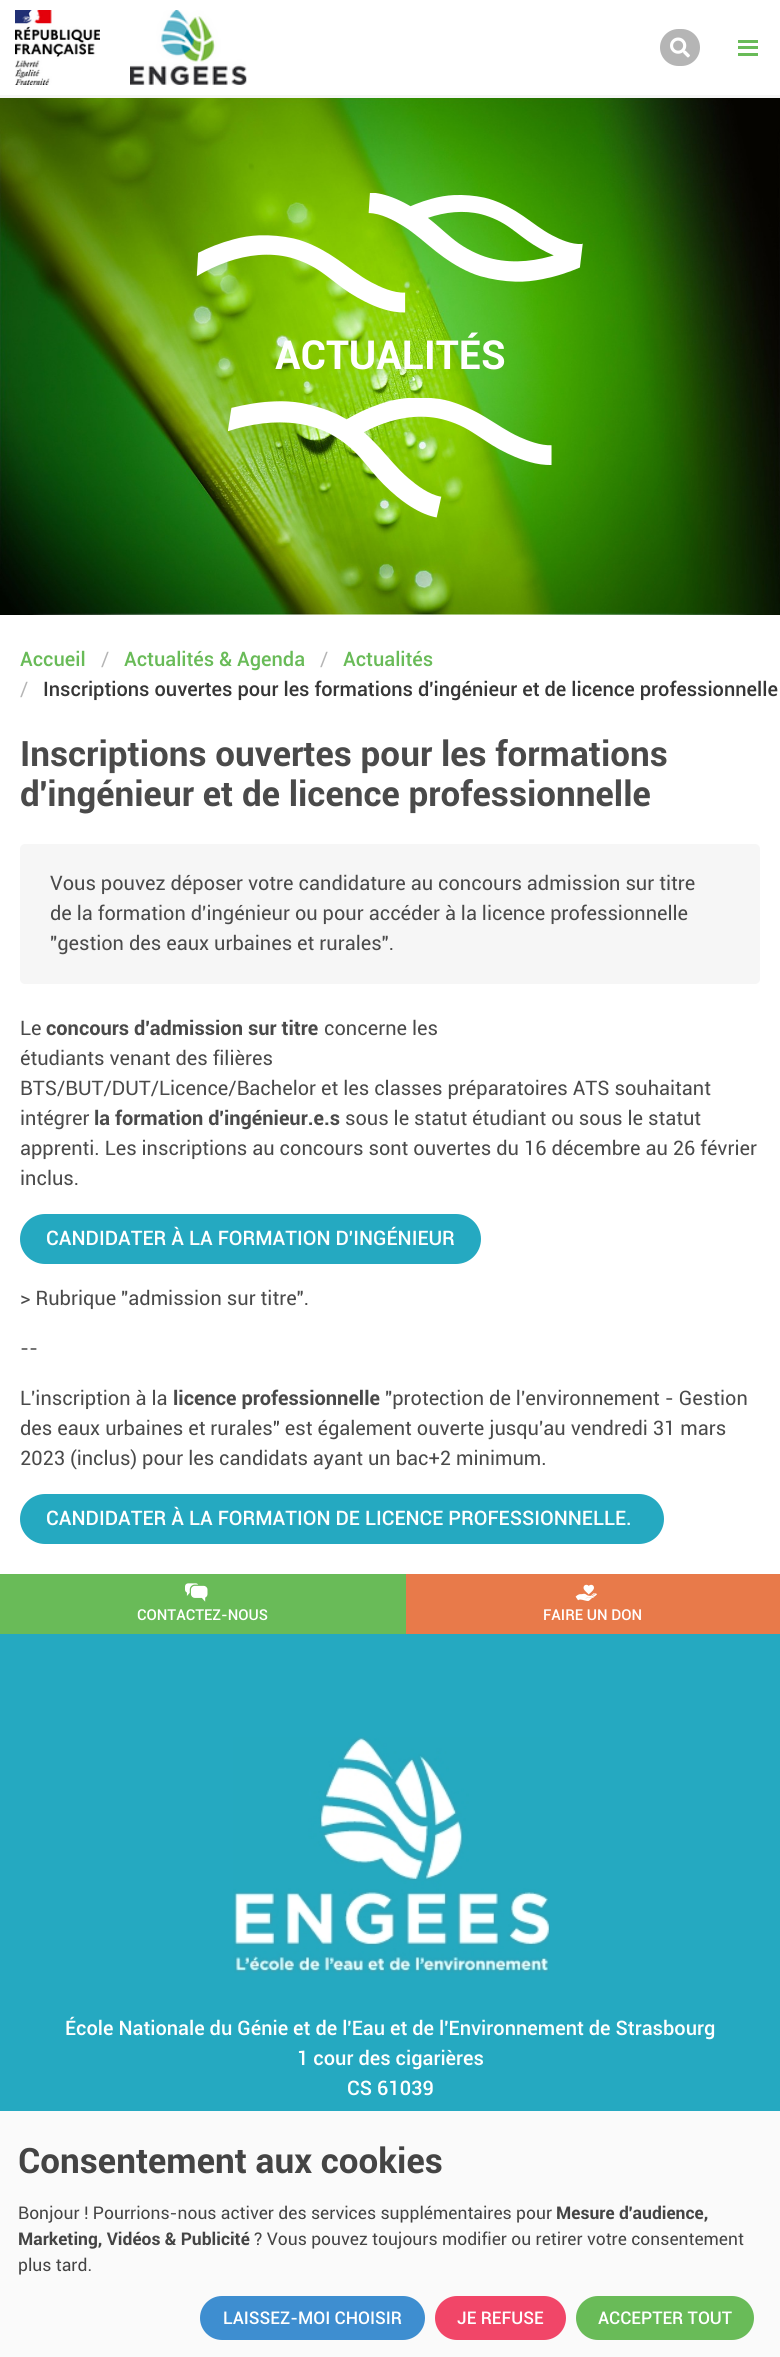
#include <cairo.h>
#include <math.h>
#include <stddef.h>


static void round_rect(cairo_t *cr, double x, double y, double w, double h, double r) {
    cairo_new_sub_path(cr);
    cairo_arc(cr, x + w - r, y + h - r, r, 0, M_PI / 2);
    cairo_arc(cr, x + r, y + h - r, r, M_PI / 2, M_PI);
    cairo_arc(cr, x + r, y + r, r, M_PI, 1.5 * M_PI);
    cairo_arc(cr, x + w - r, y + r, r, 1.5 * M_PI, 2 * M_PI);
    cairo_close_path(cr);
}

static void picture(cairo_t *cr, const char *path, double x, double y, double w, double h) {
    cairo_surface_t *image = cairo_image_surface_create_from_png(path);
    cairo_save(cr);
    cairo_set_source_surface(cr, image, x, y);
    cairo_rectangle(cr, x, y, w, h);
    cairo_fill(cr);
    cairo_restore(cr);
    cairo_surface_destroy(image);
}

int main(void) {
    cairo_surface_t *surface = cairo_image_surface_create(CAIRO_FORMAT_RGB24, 780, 2357);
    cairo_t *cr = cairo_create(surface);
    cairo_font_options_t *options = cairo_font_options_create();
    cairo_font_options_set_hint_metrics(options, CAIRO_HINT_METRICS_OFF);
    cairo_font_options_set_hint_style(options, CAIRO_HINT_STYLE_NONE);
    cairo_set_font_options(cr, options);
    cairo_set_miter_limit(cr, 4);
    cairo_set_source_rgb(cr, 1, 1, 1);
    cairo_paint(cr);
    cairo_set_source_rgb(cr, 0.961, 0.961, 0.961);
    cairo_rectangle(cr, 0, 95, 780, 3);
    cairo_fill(cr);
    picture(cr, "img1.png", 15, 10, 85, 75);
    picture(cr, "img2.png", 130, 10, 117, 75);
    cairo_set_source_rgb(cr, 0.71, 0.71, 0.71);
    round_rect(cr, 660, 29, 40, 37, 18.5);
    cairo_fill(cr);
    picture(cr, "img3.png", 670, 37, 20, 21);
    cairo_set_source_rgb(cr, 0.412, 0.733, 0.345);
    cairo_rectangle(cr, 738, 40, 20, 3);
    cairo_fill(cr);
    cairo_rectangle(cr, 738, 46, 20, 3);
    cairo_fill(cr);
    cairo_rectangle(cr, 738, 53, 20, 3);
    cairo_fill(cr);
    picture(cr, "img4.png", 0, 98, 780, 517);
    picture(cr, "img5.png", 196, 193, 387, 120);
    cairo_select_font_face(cr, "Roboto", CAIRO_FONT_SLANT_NORMAL, CAIRO_FONT_WEIGHT_BOLD);
    cairo_set_font_size(cr, 40);
    cairo_set_source_rgb(cr, 1, 1, 1);
    cairo_move_to(cr, 275, 369);
    cairo_show_text(cr, "ACTUALITÉS");
    picture(cr, "img6.png", 228, 398, 324, 120);
    cairo_select_font_face(cr, "Roboto Medium", CAIRO_FONT_SLANT_NORMAL, CAIRO_FONT_WEIGHT_NORMAL);
    cairo_set_font_size(cr, 20);
    cairo_set_source_rgb(cr, 0.412, 0.733, 0.345);
    cairo_move_to(cr, 20, 666);
    cairo_show_text(cr, "Accueil");
    cairo_select_font_face(cr, "Roboto", CAIRO_FONT_SLANT_NORMAL, CAIRO_FONT_WEIGHT_NORMAL);
    cairo_set_source_rgb(cr, 0.71, 0.71, 0.71);
    cairo_move_to(cr, 101, 666);
    cairo_show_text(cr, "/");
    cairo_select_font_face(cr, "Roboto Medium", CAIRO_FONT_SLANT_NORMAL, CAIRO_FONT_WEIGHT_NORMAL);
    cairo_set_source_rgb(cr, 0.412, 0.733, 0.345);
    cairo_move_to(cr, 124, 666);
    cairo_show_text(cr, "Actualités & Agenda");
    cairo_select_font_face(cr, "Roboto", CAIRO_FONT_SLANT_NORMAL, CAIRO_FONT_WEIGHT_NORMAL);
    cairo_set_source_rgb(cr, 0.71, 0.71, 0.71);
    cairo_move_to(cr, 320, 666);
    cairo_show_text(cr, "/");
    cairo_select_font_face(cr, "Roboto Medium", CAIRO_FONT_SLANT_NORMAL, CAIRO_FONT_WEIGHT_NORMAL);
    cairo_set_source_rgb(cr, 0.412, 0.733, 0.345);
    cairo_move_to(cr, 343, 666);
    cairo_show_text(cr, "Actualités");
    cairo_select_font_face(cr, "Roboto", CAIRO_FONT_SLANT_NORMAL, CAIRO_FONT_WEIGHT_NORMAL);
    cairo_set_source_rgb(cr, 0.71, 0.71, 0.71);
    cairo_move_to(cr, 20, 696);
    cairo_show_text(cr, "/");
    cairo_select_font_face(cr, "Roboto Medium", CAIRO_FONT_SLANT_NORMAL, CAIRO_FONT_WEIGHT_NORMAL);
    cairo_set_source_rgb(cr, 0.212, 0.212, 0.212);
    cairo_move_to(cr, 43, 696);
    cairo_show_text(cr, "Inscriptions ouvertes pour les formations d'ingénieur et de licence professionnelle");
    cairo_select_font_face(cr, "Roboto", CAIRO_FONT_SLANT_NORMAL, CAIRO_FONT_WEIGHT_BOLD);
    cairo_set_font_size(cr, 35);
    cairo_set_source_rgb(cr, 0.29, 0.29, 0.29);
    cairo_move_to(cr, 20, 766);
    cairo_show_text(cr, "Inscriptions ouvertes pour les formations");
    cairo_move_to(cr, 20, 806);
    cairo_show_text(cr, "d'ingénieur et de licence professionnelle");
    cairo_set_source_rgb(cr, 0.961, 0.961, 0.961);
    round_rect(cr, 20, 844, 740, 140, 5);
    cairo_fill(cr);
    cairo_select_font_face(cr, "Roboto", CAIRO_FONT_SLANT_NORMAL, CAIRO_FONT_WEIGHT_NORMAL);
    cairo_set_font_size(cr, 20);
    cairo_set_source_rgb(cr, 0.29, 0.29, 0.29);
    cairo_move_to(cr, 50, 890);
    cairo_show_text(cr, "Vous pouvez déposer votre candidature au concours admission sur titre");
    cairo_move_to(cr, 50, 920);
    cairo_show_text(cr, "de la formation d'ingénieur ou pour accéder à la licence professionnelle");
    cairo_move_to(cr, 50, 950);
    cairo_show_text(cr, "\"gestion des eaux urbaines et rurales\".");
    cairo_move_to(cr, 20, 1035);
    cairo_show_text(cr, "Le");
    cairo_select_font_face(cr, "Roboto", CAIRO_FONT_SLANT_NORMAL, CAIRO_FONT_WEIGHT_BOLD);
    cairo_move_to(cr, 46, 1035);
    cairo_show_text(cr, "concours d'admission sur titre");
    cairo_select_font_face(cr, "Roboto", CAIRO_FONT_SLANT_NORMAL, CAIRO_FONT_WEIGHT_NORMAL);
    cairo_move_to(cr, 324, 1035);
    cairo_show_text(cr, "concerne les");
    cairo_move_to(cr, 20, 1065);
    cairo_show_text(cr, "étudiants venant des filières");
    cairo_move_to(cr, 20, 1095);
    cairo_show_text(cr, "BTS/BUT/DUT/Licence/Bachelor et les classes préparatoires ATS souhaitant");
    cairo_move_to(cr, 20, 1125);
    cairo_show_text(cr, "intégrer");
    cairo_select_font_face(cr, "Roboto", CAIRO_FONT_SLANT_NORMAL, CAIRO_FONT_WEIGHT_BOLD);
    cairo_move_to(cr, 94, 1125);
    cairo_show_text(cr, "la formation d'ingénieur.e.s");
    cairo_select_font_face(cr, "Roboto", CAIRO_FONT_SLANT_NORMAL, CAIRO_FONT_WEIGHT_NORMAL);
    cairo_move_to(cr, 345, 1125);
    cairo_show_text(cr, "sous le statut étudiant ou sous le statut");
    cairo_move_to(cr, 20, 1155);
    cairo_show_text(cr, "apprenti. Les inscriptions au concours sont ouvertes du 16 décembre au 26 février");
    cairo_move_to(cr, 20, 1185);
    cairo_show_text(cr, "inclus.");
    cairo_set_source_rgb(cr, 0.145, 0.663, 0.757);
    round_rect(cr, 20, 1214, 461, 50, 25);
    cairo_fill(cr);
    cairo_select_font_face(cr, "Roboto Medium", CAIRO_FONT_SLANT_NORMAL, CAIRO_FONT_WEIGHT_NORMAL);
    cairo_set_source_rgb(cr, 1, 1, 1);
    cairo_move_to(cr, 46, 1245);
    cairo_show_text(cr, "CANDIDATER À LA FORMATION D'INGÉNIEUR");
    cairo_select_font_face(cr, "Roboto", CAIRO_FONT_SLANT_NORMAL, CAIRO_FONT_WEIGHT_NORMAL);
    cairo_set_source_rgb(cr, 0.29, 0.29, 0.29);
    cairo_move_to(cr, 20, 1305);
    cairo_show_text(cr, "> Rubrique \"admission sur titre\".");
    cairo_move_to(cr, 20, 1355);
    cairo_show_text(cr, "--");
    cairo_move_to(cr, 20, 1405);
    cairo_show_text(cr, "L'inscription à la");
    cairo_select_font_face(cr, "Roboto", CAIRO_FONT_SLANT_NORMAL, CAIRO_FONT_WEIGHT_BOLD);
    cairo_move_to(cr, 173, 1405);
    cairo_show_text(cr, "licence professionnelle");
    cairo_select_font_face(cr, "Roboto", CAIRO_FONT_SLANT_NORMAL, CAIRO_FONT_WEIGHT_NORMAL);
    cairo_move_to(cr, 385, 1405);
    cairo_show_text(cr, "\"protection de l'environnement - Gestion");
    cairo_move_to(cr, 20, 1435);
    cairo_show_text(cr, "des eaux urbaines et rurales\" est également ouverte jusqu'au vendredi 31 mars");
    cairo_move_to(cr, 20, 1465);
    cairo_show_text(cr, "2023 (inclus) pour les candidats ayant un bac+2 minimum.");
    cairo_set_source_rgb(cr, 0.145, 0.663, 0.757);
    round_rect(cr, 20, 1494, 644, 50, 25);
    cairo_fill(cr);
    cairo_select_font_face(cr, "Roboto Medium", CAIRO_FONT_SLANT_NORMAL, CAIRO_FONT_WEIGHT_NORMAL);
    cairo_set_source_rgb(cr, 1, 1, 1);
    cairo_move_to(cr, 46, 1525);
    cairo_show_text(cr, "CANDIDATER À LA FORMATION DE LICENCE PROFESSIONNELLE.");
    cairo_set_source_rgb(cr, 0.412, 0.733, 0.345);
    cairo_rectangle(cr, 0, 1574, 406, 60);
    cairo_fill(cr);
    picture(cr, "img7.png", 185, 1583, 23, 19);
    cairo_set_font_size(cr, 15);
    cairo_set_source_rgb(cr, 1, 1, 1);
    cairo_move_to(cr, 137, 1620);
    cairo_show_text(cr, "CONTACTEZ-NOUS");
    cairo_set_source_rgb(cr, 0.91, 0.478, 0.29);
    cairo_rectangle(cr, 406, 1574, 374, 60);
    cairo_fill(cr);
    picture(cr, "img8.png", 575, 1584, 22, 17);
    cairo_set_source_rgb(cr, 1, 1, 1);
    cairo_move_to(cr, 543, 1620);
    cairo_show_text(cr, "FAIRE UN DON");
    cairo_set_source_rgb(cr, 0.145, 0.663, 0.757);
    cairo_rectangle(cr, 0, 1634, 780, 477);
    cairo_fill(cr);
    picture(cr, "img9.png", 233, 1737, 317, 236);
    cairo_set_font_size(cr, 20);
    cairo_set_source_rgb(cr, 1, 1, 1);
    cairo_move_to(cr, 65, 2035);
    cairo_show_text(cr, "École Nationale du Génie et de l'Eau et de l'Environnement de Strasbourg");
    cairo_move_to(cr, 297, 2065);
    cairo_show_text(cr, "1 cour des cigarières");
    cairo_move_to(cr, 347, 2095);
    cairo_show_text(cr, "CS 61039");
    cairo_set_source_rgb(cr, 0.98, 0.98, 0.98);
    cairo_rectangle(cr, 0, 2111, 780, 246);
    cairo_fill(cr);
    cairo_select_font_face(cr, "Roboto", CAIRO_FONT_SLANT_NORMAL, CAIRO_FONT_WEIGHT_BOLD);
    cairo_set_font_size(cr, 35);
    cairo_set_source_rgb(cr, 0.267, 0.267, 0.267);
    cairo_move_to(cr, 18, 2173);
    cairo_show_text(cr, "Consentement aux cookies");
    cairo_select_font_face(cr, "Roboto", CAIRO_FONT_SLANT_NORMAL, CAIRO_FONT_WEIGHT_NORMAL);
    cairo_set_font_size(cr, 17.5);
    cairo_move_to(cr, 18, 2219);
    cairo_show_text(cr, "Bonjour ! Pourrions-nous activer des services supplémentaires pour");
    cairo_select_font_face(cr, "Roboto", CAIRO_FONT_SLANT_NORMAL, CAIRO_FONT_WEIGHT_BOLD);
    cairo_move_to(cr, 556, 2219);
    cairo_show_text(cr, "Mesure d'audience,");
    cairo_move_to(cr, 18, 2245);
    cairo_show_text(cr, "Marketing, Vidéos & Publicité");
    cairo_select_font_face(cr, "Roboto", CAIRO_FONT_SLANT_NORMAL, CAIRO_FONT_WEIGHT_NORMAL);
    cairo_move_to(cr, 254, 2245);
    cairo_show_text(cr, "? Vous pouvez toujours modifier ou retirer votre consentement");
    cairo_move_to(cr, 18, 2271);
    cairo_show_text(cr, "plus tard.");
    cairo_set_source_rgb(cr, 0.243, 0.557, 0.816);
    round_rect(cr, 200, 2296, 225, 44, 22);
    cairo_fill(cr);
    cairo_select_font_face(cr, "Roboto Medium", CAIRO_FONT_SLANT_NORMAL, CAIRO_FONT_WEIGHT_NORMAL);
    cairo_set_source_rgb(cr, 1, 1, 1);
    cairo_move_to(cr, 223, 2324);
    cairo_show_text(cr, "LAISSEZ-MOI CHOISIR");
    cairo_set_source_rgb(cr, 0.945, 0.275, 0.408);
    round_rect(cr, 435, 2296, 131, 44, 22);
    cairo_fill(cr);
    cairo_set_source_rgb(cr, 1, 1, 1);
    cairo_move_to(cr, 457, 2324);
    cairo_show_text(cr, "JE REFUSE");
    cairo_set_source_rgb(cr, 0.412, 0.733, 0.345);
    round_rect(cr, 576, 2296, 178, 44, 22);
    cairo_fill(cr);
    cairo_set_source_rgb(cr, 1, 1, 1);
    cairo_move_to(cr, 598, 2324);
    cairo_show_text(cr, "ACCEPTER TOUT");
    cairo_surface_write_to_png(surface, "page.png");
    cairo_font_options_destroy(options);
    cairo_destroy(cr);
    cairo_surface_destroy(surface);
    return 0;
}
